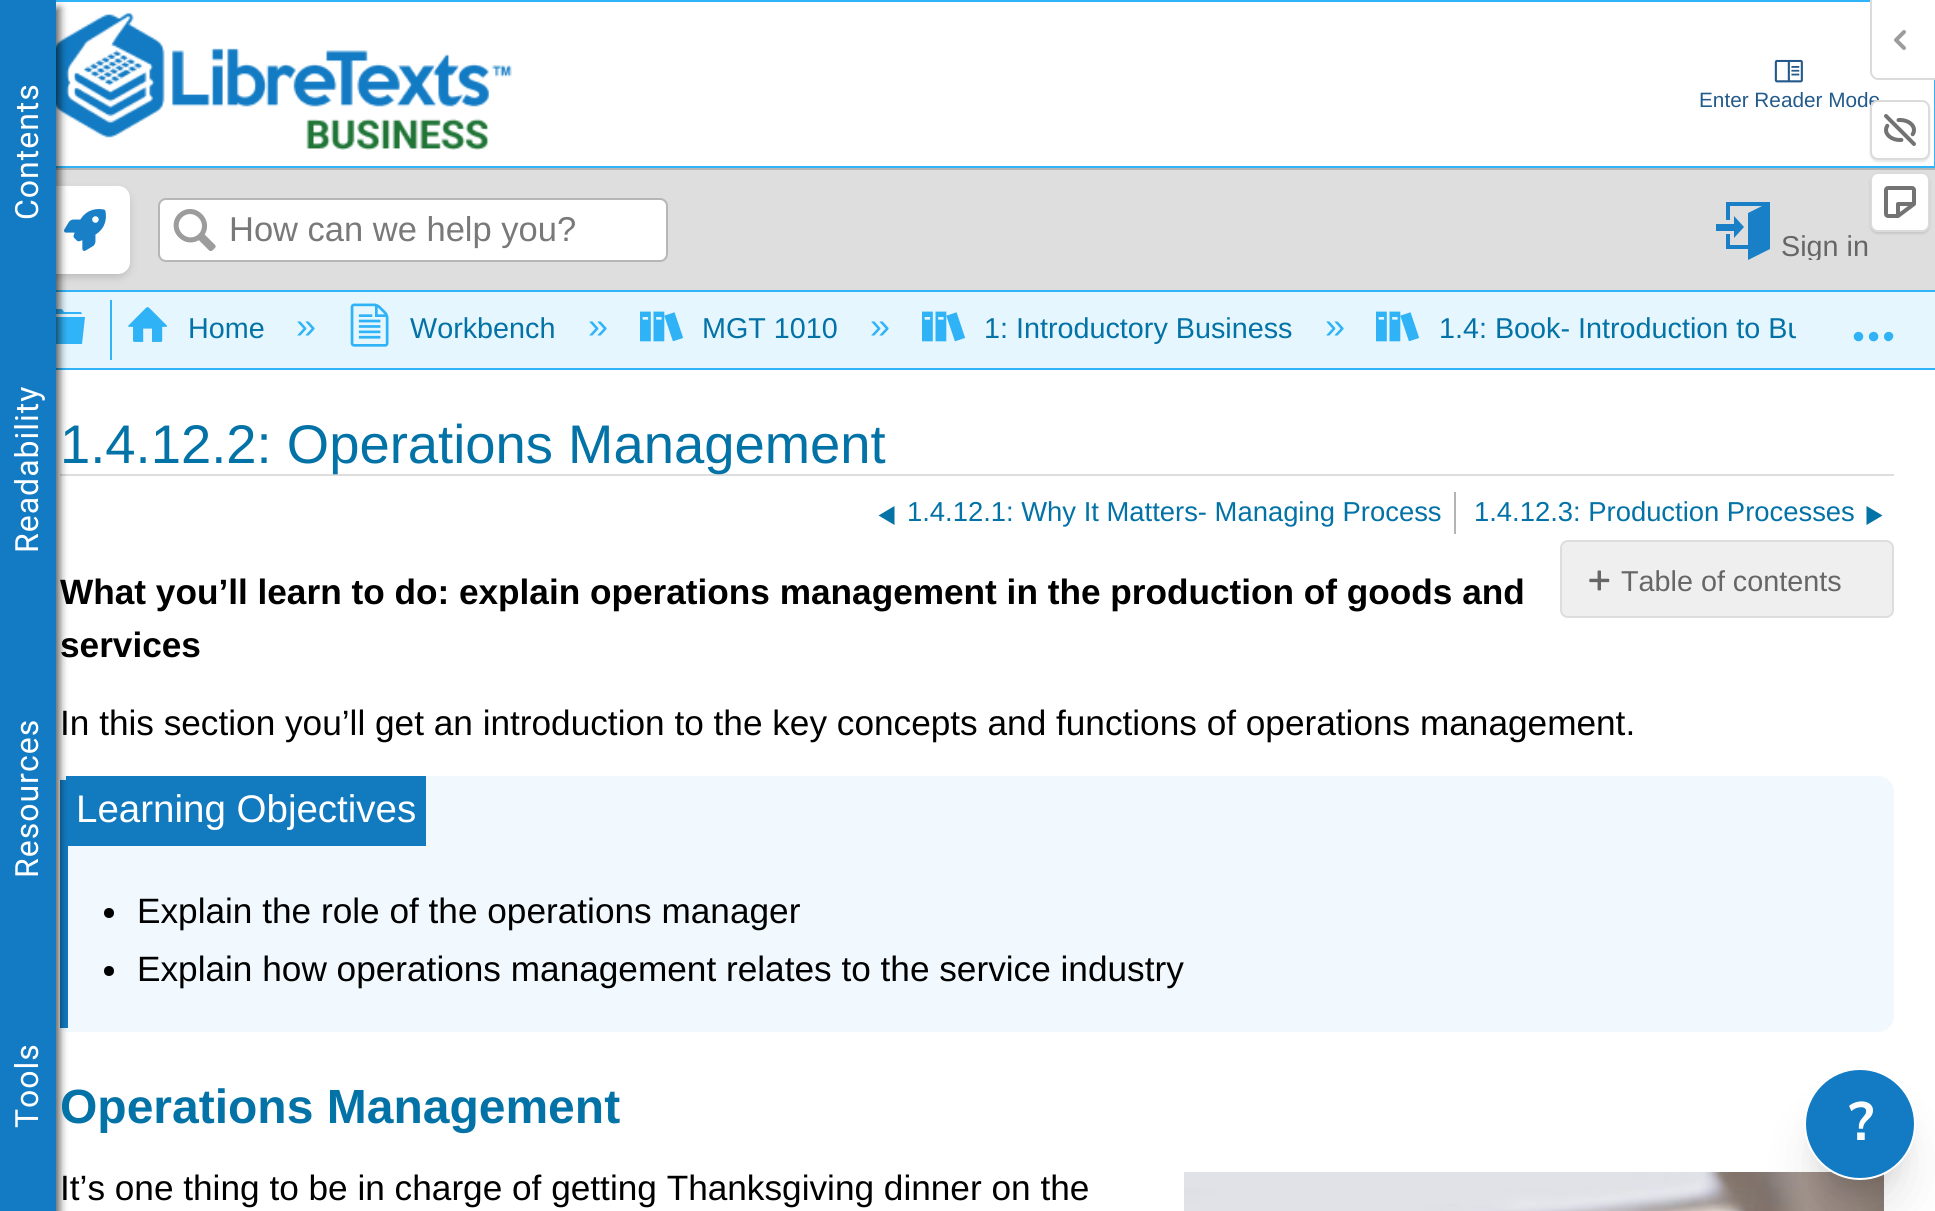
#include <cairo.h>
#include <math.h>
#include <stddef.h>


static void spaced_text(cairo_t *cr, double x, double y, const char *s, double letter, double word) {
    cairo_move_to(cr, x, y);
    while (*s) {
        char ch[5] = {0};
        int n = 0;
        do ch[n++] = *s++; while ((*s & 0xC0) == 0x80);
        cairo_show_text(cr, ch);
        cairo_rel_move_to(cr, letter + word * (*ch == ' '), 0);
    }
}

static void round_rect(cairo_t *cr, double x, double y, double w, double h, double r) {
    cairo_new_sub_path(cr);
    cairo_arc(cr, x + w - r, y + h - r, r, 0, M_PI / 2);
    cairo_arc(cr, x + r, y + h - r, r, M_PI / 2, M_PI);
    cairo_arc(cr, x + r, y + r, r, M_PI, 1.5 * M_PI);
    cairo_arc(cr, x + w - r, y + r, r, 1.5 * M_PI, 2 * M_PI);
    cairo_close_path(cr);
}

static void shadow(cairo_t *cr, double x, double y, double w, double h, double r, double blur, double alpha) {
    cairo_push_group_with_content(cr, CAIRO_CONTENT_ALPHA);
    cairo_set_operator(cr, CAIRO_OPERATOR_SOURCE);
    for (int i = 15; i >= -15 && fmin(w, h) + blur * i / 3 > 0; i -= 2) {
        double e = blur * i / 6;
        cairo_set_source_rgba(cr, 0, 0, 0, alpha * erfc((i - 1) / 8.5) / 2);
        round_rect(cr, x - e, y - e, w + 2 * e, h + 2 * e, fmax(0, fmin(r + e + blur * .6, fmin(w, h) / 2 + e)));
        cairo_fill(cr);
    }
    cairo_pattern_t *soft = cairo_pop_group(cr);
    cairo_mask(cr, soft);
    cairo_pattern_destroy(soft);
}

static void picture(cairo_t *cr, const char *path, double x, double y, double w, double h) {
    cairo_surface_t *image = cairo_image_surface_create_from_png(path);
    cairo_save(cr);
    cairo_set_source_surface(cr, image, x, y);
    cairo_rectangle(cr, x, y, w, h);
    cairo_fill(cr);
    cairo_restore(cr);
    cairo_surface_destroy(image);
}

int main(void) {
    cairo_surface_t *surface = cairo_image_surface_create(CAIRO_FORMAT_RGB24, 1935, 1211);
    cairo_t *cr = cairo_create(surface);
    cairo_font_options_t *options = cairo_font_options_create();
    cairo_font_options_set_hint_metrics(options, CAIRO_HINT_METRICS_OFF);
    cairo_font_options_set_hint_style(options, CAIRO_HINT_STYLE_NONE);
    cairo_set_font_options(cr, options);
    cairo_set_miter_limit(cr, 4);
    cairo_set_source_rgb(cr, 1, 1, 1);
    cairo_paint(cr);
    cairo_rectangle(cr, 1, 1, 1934, 166);
    cairo_set_source_rgb(cr, 0.188, 0.702, 0.965);
    cairo_stroke(cr);
    picture(cr, "img1.png", 56, 13, 456, 137);
    cairo_set_source_rgb(cr, 0.871, 0.871, 0.871);
    cairo_rectangle(cr, 56, 170, 1879, 120);
    cairo_fill(cr);
    cairo_set_source_rgb(cr, 0.714, 0.714, 0.714);
    cairo_rectangle(cr, 56, 168, 1879, 2);
    cairo_fill(cr);
    cairo_set_source_rgb(cr, 0.188, 0.702, 0.965);
    cairo_rectangle(cr, 56, 290, 1879, 2);
    cairo_fill(cr);
    cairo_set_source_rgb(cr, 0.031, 0.031, 0.031);
    shadow(cr, 44, 192, 84, 84, 10, 5, 0.2);
    cairo_set_source_rgb(cr, 1, 1, 1);
    round_rect(cr, 42, 186, 88, 88, 12);
    cairo_fill(cr);
    picture(cr, "img3.png", 64, 209, 42, 42);
    cairo_set_source_rgb(cr, 0.898, 0.961, 0.996);
    cairo_rectangle(cr, 56, 292, 1879, 76);
    cairo_fill(cr);
    cairo_set_source_rgb(cr, 0.188, 0.702, 0.965);
    cairo_rectangle(cr, 56, 368, 1879, 2);
    cairo_fill(cr);
    cairo_new_path(cr);
    cairo_move_to(cr, 42, 317);
    cairo_line_to(cr, 85, 317);
    cairo_line_to(cr, 82, 344);
    cairo_line_to(cr, 45, 344);
    cairo_close_path(cr);
    cairo_move_to(cr, 81, 312);
    cairo_line_to(cr, 82, 314);
    cairo_line_to(cr, 45, 314);
    cairo_line_to(cr, 47, 309);
    cairo_line_to(cr, 62, 309);
    cairo_line_to(cr, 64, 312);
    cairo_close_path(cr);
    cairo_fill(cr);
    cairo_set_source_rgb(cr, 0.867, 0.867, 0.867);
    cairo_rectangle(cr, 60, 474, 1834, 2);
    cairo_fill(cr);
    cairo_set_source_rgb(cr, 0.945, 0.976, 0.996);
    cairo_new_path(cr);
    cairo_move_to(cr, 68, 776);
    cairo_line_to(cr, 1878, 776);
    cairo_curve_to(cr, 1887, 776, 1894, 783, 1894, 792);
    cairo_line_to(cr, 1894, 1016);
    cairo_curve_to(cr, 1894, 1025, 1887, 1032, 1878, 1032);
    cairo_line_to(cr, 68, 1032);
    cairo_curve_to(cr, 63.5, 1032, 60, 1028.5, 60, 1024);
    cairo_line_to(cr, 60, 784);
    cairo_curve_to(cr, 60, 779.5, 63.5, 776, 68, 776);
    cairo_close_path(cr);
    cairo_fill(cr);
    cairo_set_source_rgb(cr, 0.071, 0.478, 0.749);
    cairo_rectangle(cr, 60, 780, 8, 248);
    cairo_fill(cr);
    cairo_rectangle(cr, 66, 776, 360, 70);
    cairo_fill(cr);
    cairo_set_source_rgb(cr, 0, 0, 0);
    shadow(cr, 4, 8, 56, 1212, 0, 4, 0.6);
    cairo_set_source_rgb(cr, 0.071, 0.482, 0.769);
    cairo_rectangle(cr, 0, 0, 56, 1211);
    cairo_fill(cr);
    cairo_select_font_face(cr, "Roboto", CAIRO_FONT_SLANT_NORMAL, CAIRO_FONT_WEIGHT_NORMAL);
    cairo_set_font_size(cr, 32);
    cairo_set_source_rgb(cr, 1, 1, 1);
    cairo_save(cr);
    cairo_translate(cr, 38, 220);
    cairo_rotate(cr, -90 * M_PI / 180);
    spaced_text(cr, 0, 0, "Contents", 1, 0);
    cairo_restore(cr);
    cairo_save(cr);
    cairo_translate(cr, 38, 553);
    cairo_rotate(cr, -90 * M_PI / 180);
    spaced_text(cr, 0, 0, "Readability", 1, 0);
    cairo_restore(cr);
    cairo_save(cr);
    cairo_translate(cr, 38, 878);
    cairo_rotate(cr, -90 * M_PI / 180);
    spaced_text(cr, 0, 0, "Resources", 1, 0);
    cairo_restore(cr);
    cairo_save(cr);
    cairo_translate(cr, 38, 1128);
    cairo_rotate(cr, -90 * M_PI / 180);
    spaced_text(cr, 0, 0, "Tools", 1, 0);
    cairo_restore(cr);
    picture(cr, "img2.png", 1774, 59, 29, 24);
    cairo_select_font_face(cr, "Liberation Sans", CAIRO_FONT_SLANT_NORMAL, CAIRO_FONT_WEIGHT_NORMAL);
    cairo_set_font_size(cr, 20.75);
    cairo_set_source_rgb(cr, 0.137, 0.353, 0.545);
    cairo_move_to(cr, 1699, 107);
    cairo_show_text(cr, "Enter Reader Mode");
    cairo_set_source_rgb(cr, 1, 1, 1);
    round_rect(cr, 159, 199, 508, 62, 7);
    cairo_fill_preserve(cr);
    cairo_set_source_rgb(cr, 0.714, 0.714, 0.714);
    cairo_stroke(cr);
    picture(cr, "img4.png", 173, 209, 43, 42);
    cairo_set_font_size(cr, 34.5);
    cairo_set_source_rgb(cr, 0.475, 0.475, 0.475);
    cairo_move_to(cr, 229, 241);
    cairo_show_text(cr, "How can we help you?");
    cairo_set_source_rgb(cr, 0.098, 0.498, 0.776);
    cairo_new_path(cr);
    cairo_move_to(cr, 1734, 231);
    cairo_line_to(cr, 1716, 231);
    cairo_line_to(cr, 1716, 224);
    cairo_line_to(cr, 1734, 224);
    cairo_line_to(cr, 1734, 216);
    cairo_line_to(cr, 1744, 227);
    cairo_line_to(cr, 1734, 238);
    cairo_close_path(cr);
    cairo_move_to(cr, 1770, 202);
    cairo_line_to(cr, 1770, 249);
    cairo_line_to(cr, 1748, 260);
    cairo_line_to(cr, 1748, 249);
    cairo_line_to(cr, 1726, 249);
    cairo_line_to(cr, 1726, 234);
    cairo_line_to(cr, 1730, 234);
    cairo_line_to(cr, 1730, 245);
    cairo_line_to(cr, 1748, 245);
    cairo_line_to(cr, 1748, 213);
    cairo_line_to(cr, 1762, 206);
    cairo_line_to(cr, 1730, 206);
    cairo_line_to(cr, 1730, 220);
    cairo_line_to(cr, 1726, 220);
    cairo_line_to(cr, 1726, 202);
    cairo_close_path(cr);
    cairo_fill(cr);
    cairo_save(cr);
    cairo_rectangle(cr, 1712, 200, 168, 60);
    cairo_clip(cr);
    cairo_set_font_size(cr, 28.75);
    cairo_set_source_rgb(cr, 0.4, 0.4, 0.4);
    cairo_move_to(cr, 1781, 256);
    cairo_show_text(cr, "Sign in");
    cairo_restore(cr);
    cairo_set_source_rgb(cr, 0.188, 0.702, 0.965);
    cairo_rectangle(cr, 110, 300, 2, 60);
    cairo_fill(cr);
    picture(cr, "img5.png", 128, 307, 39, 35);
    cairo_set_font_size(cr, 28.75);
    cairo_set_source_rgb(cr, 0.012, 0.447, 0.651);
    cairo_move_to(cr, 188, 338);
    cairo_show_text(cr, "Home");
    cairo_set_font_size(cr, 36);
    cairo_set_source_rgb(cr, 0.188, 0.702, 0.965);
    cairo_move_to(cr, 296, 338);
    cairo_show_text(cr, "»");
    picture(cr, "img6.png", 350, 303, 39, 44);
    cairo_set_font_size(cr, 28.75);
    cairo_set_source_rgb(cr, 0.012, 0.447, 0.651);
    cairo_move_to(cr, 410, 338);
    cairo_show_text(cr, "Workbench");
    cairo_set_font_size(cr, 36);
    cairo_set_source_rgb(cr, 0.188, 0.702, 0.965);
    cairo_move_to(cr, 588, 338);
    cairo_show_text(cr, "»");
    picture(cr, "img7.png", 640, 311, 44, 31);
    cairo_set_font_size(cr, 28.75);
    cairo_set_source_rgb(cr, 0.012, 0.447, 0.651);
    cairo_move_to(cr, 702, 338);
    cairo_show_text(cr, "MGT 1010");
    cairo_set_font_size(cr, 36);
    cairo_set_source_rgb(cr, 0.188, 0.702, 0.965);
    cairo_move_to(cr, 870, 338);
    cairo_show_text(cr, "»");
    picture(cr, "img7.png", 922, 311, 44, 31);
    cairo_set_font_size(cr, 28.75);
    cairo_set_source_rgb(cr, 0.012, 0.447, 0.651);
    cairo_move_to(cr, 984, 338);
    cairo_show_text(cr, "1: Introductory Business");
    cairo_set_font_size(cr, 36);
    cairo_set_source_rgb(cr, 0.188, 0.702, 0.965);
    cairo_move_to(cr, 1325, 338);
    cairo_show_text(cr, "»");
    picture(cr, "img7.png", 1376, 311, 44, 31);
    cairo_save(cr);
    cairo_rectangle(cr, 112, 300, 1684, 60);
    cairo_clip(cr);
    cairo_set_font_size(cr, 28.75);
    cairo_set_source_rgb(cr, 0.012, 0.447, 0.651);
    cairo_move_to(cr, 1439, 338);
    cairo_show_text(cr, "1.4: Book- Introduction to Bu");
    cairo_restore(cr);
    picture(cr, "img8.png", 1853, 331, 41, 11);
    cairo_set_font_size(cr, 54.4);
    cairo_set_source_rgb(cr, 0.012, 0.447, 0.651);
    cairo_move_to(cr, 60, 463);
    cairo_show_text(cr, "1.4.12.2: Operations Management");
    cairo_set_source_rgb(cr, 0.706, 0.706, 0.706);
    cairo_rectangle(cr, 1454, 492, 2, 42);
    cairo_fill(cr);
    cairo_set_source_rgb(cr, 0.012, 0.447, 0.651);
    cairo_new_path(cr);
    cairo_move_to(cr, 894.5, 506);
    cairo_line_to(cr, 894.5, 525);
    cairo_line_to(cr, 878.5, 515.5);
    cairo_close_path(cr);
    cairo_fill(cr);
    cairo_set_font_size(cr, 27.4);
    cairo_move_to(cr, 907, 521);
    cairo_show_text(cr, "1.4.12.1: Why It Matters- Managing Process");
    cairo_move_to(cr, 1474, 521);
    cairo_show_text(cr, "1.4.12.3: Production Processes");
    cairo_new_path(cr);
    cairo_move_to(cr, 1866.5, 506);
    cairo_line_to(cr, 1866.5, 525);
    cairo_line_to(cr, 1882.5, 515.5);
    cairo_close_path(cr);
    cairo_fill(cr);
    cairo_select_font_face(cr, "Liberation Sans", CAIRO_FONT_SLANT_NORMAL, CAIRO_FONT_WEIGHT_BOLD);
    cairo_set_font_size(cr, 35.2);
    cairo_set_source_rgb(cr, 0, 0, 0);
    cairo_move_to(cr, 60, 604);
    cairo_show_text(cr, "What you’ll learn to do: explain operations management in the production of goods and");
    cairo_move_to(cr, 60, 657);
    cairo_show_text(cr, "services");
    cairo_select_font_face(cr, "Liberation Sans", CAIRO_FONT_SLANT_NORMAL, CAIRO_FONT_WEIGHT_NORMAL);
    cairo_move_to(cr, 60, 735);
    cairo_show_text(cr, "In this section you’ll get an introduction to the key concepts and functions of operations management.");
    cairo_set_font_size(cr, 38.5);
    cairo_set_source_rgb(cr, 1, 1, 1);
    cairo_move_to(cr, 76, 822);
    cairo_show_text(cr, "Learning Objectives");
    cairo_set_source_rgb(cr, 0, 0, 0);
    cairo_new_path(cr);
    cairo_arc(cr, 109, 913, 5, 0, 2 * M_PI);
    cairo_fill(cr);
    cairo_set_font_size(cr, 35.2);
    cairo_move_to(cr, 137, 923);
    cairo_show_text(cr, "Explain the role of the operations manager");
    cairo_new_path(cr);
    cairo_arc(cr, 109, 971, 5, 0, 2 * M_PI);
    cairo_fill(cr);
    cairo_move_to(cr, 137, 981);
    cairo_show_text(cr, "Explain how operations management relates to the service industry");
    cairo_select_font_face(cr, "Liberation Sans", CAIRO_FONT_SLANT_NORMAL, CAIRO_FONT_WEIGHT_BOLD);
    cairo_set_font_size(cr, 48);
    cairo_set_source_rgb(cr, 0.012, 0.447, 0.651);
    cairo_move_to(cr, 60, 1123);
    cairo_show_text(cr, "Operations Management");
    cairo_select_font_face(cr, "Liberation Sans", CAIRO_FONT_SLANT_NORMAL, CAIRO_FONT_WEIGHT_NORMAL);
    cairo_set_font_size(cr, 35.2);
    cairo_set_source_rgb(cr, 0, 0, 0);
    cairo_move_to(cr, 60, 1200);
    cairo_show_text(cr, "It’s one thing to be in charge of getting Thanksgiving dinner on the");
    picture(cr, "img9.png", 1184, 1172, 700, 39);
    cairo_set_source_rgb(cr, 0.937, 0.937, 0.937);
    round_rect(cr, 1561, 541, 332, 76, 7);
    cairo_fill_preserve(cr);
    cairo_set_source_rgb(cr, 0.867, 0.867, 0.867);
    cairo_stroke(cr);
    picture(cr, "img10.png", 1589, 570, 21, 21);
    cairo_set_font_size(cr, 28.75);
    cairo_set_source_rgb(cr, 0.4, 0.4, 0.4);
    cairo_move_to(cr, 1621, 591);
    cairo_show_text(cr, "Table of contents");
    cairo_set_source_rgb(cr, 0, 0, 0);
    shadow(cr, 1816, 1096, 88, 88, 44, 10, 0.1);
    shadow(cr, 1814, 1118, 92, 92, 46, 25, 0.1);
    cairo_set_source_rgb(cr, 0.071, 0.482, 0.769);
    cairo_arc(cr, 1860, 1124, 55, 0, 2 * M_PI);
    cairo_fill_preserve(cr);
    cairo_set_source_rgb(cr, 1, 1, 1);
    cairo_stroke(cr);
    cairo_select_font_face(cr, "Nunito Sans", CAIRO_FONT_SLANT_NORMAL, CAIRO_FONT_WEIGHT_BOLD);
    cairo_set_font_size(cr, 54);
    cairo_move_to(cr, 1849, 1140);
    cairo_show_text(cr, "?");
    cairo_new_path(cr);
    cairo_move_to(cr, 1872, 0);
    cairo_line_to(cr, 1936, 0);
    cairo_line_to(cr, 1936, 78);
    cairo_line_to(cr, 1878, 78);
    cairo_curve_to(cr, 1874.5, 78, 1872, 75.5, 1872, 72);
    cairo_close_path(cr);
    cairo_fill(cr);
    cairo_set_source_rgb(cr, 0.859, 0.859, 0.859);
    cairo_set_fill_rule(cr, CAIRO_FILL_RULE_EVEN_ODD);
    cairo_new_path(cr);
    cairo_move_to(cr, 1870, 0);
    cairo_line_to(cr, 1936, 0);
    cairo_line_to(cr, 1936, 80);
    cairo_line_to(cr, 1878, 80);
    cairo_curve_to(cr, 1874, 80, 1870, 76, 1870, 72);
    cairo_close_path(cr);
    cairo_move_to(cr, 1872, 0);
    cairo_line_to(cr, 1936, 0);
    cairo_line_to(cr, 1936, 78);
    cairo_line_to(cr, 1878, 78);
    cairo_curve_to(cr, 1875, 78, 1872, 75, 1872, 72);
    cairo_close_path(cr);
    cairo_fill(cr);
    picture(cr, "img11.png", 1894, 30, 12, 20);
    cairo_set_source_rgb(cr, 0, 0, 0);
    shadow(cr, 1870, 102, 60, 60, 8, 1, 0.1);
    cairo_set_source_rgb(cr, 1, 1, 1);
    round_rect(cr, 1871, 101, 58, 58, 7);
    cairo_fill_preserve(cr);
    cairo_set_source_rgb(cr, 0.859, 0.859, 0.859);
    cairo_stroke(cr);
    picture(cr, "img12.png", 1884, 114, 32, 32);
    cairo_set_source_rgb(cr, 0, 0, 0);
    shadow(cr, 1870, 174, 60, 60, 8, 1, 0.1);
    cairo_set_source_rgb(cr, 1, 1, 1);
    round_rect(cr, 1871, 173, 58, 58, 7);
    cairo_fill_preserve(cr);
    cairo_set_source_rgb(cr, 0.859, 0.859, 0.859);
    cairo_stroke(cr);
    picture(cr, "img13.png", 1884, 186, 32, 32);
    cairo_surface_write_to_png(surface, "page.png");
    cairo_font_options_destroy(options);
    cairo_destroy(cr);
    cairo_surface_destroy(surface);
    return 0;
}
